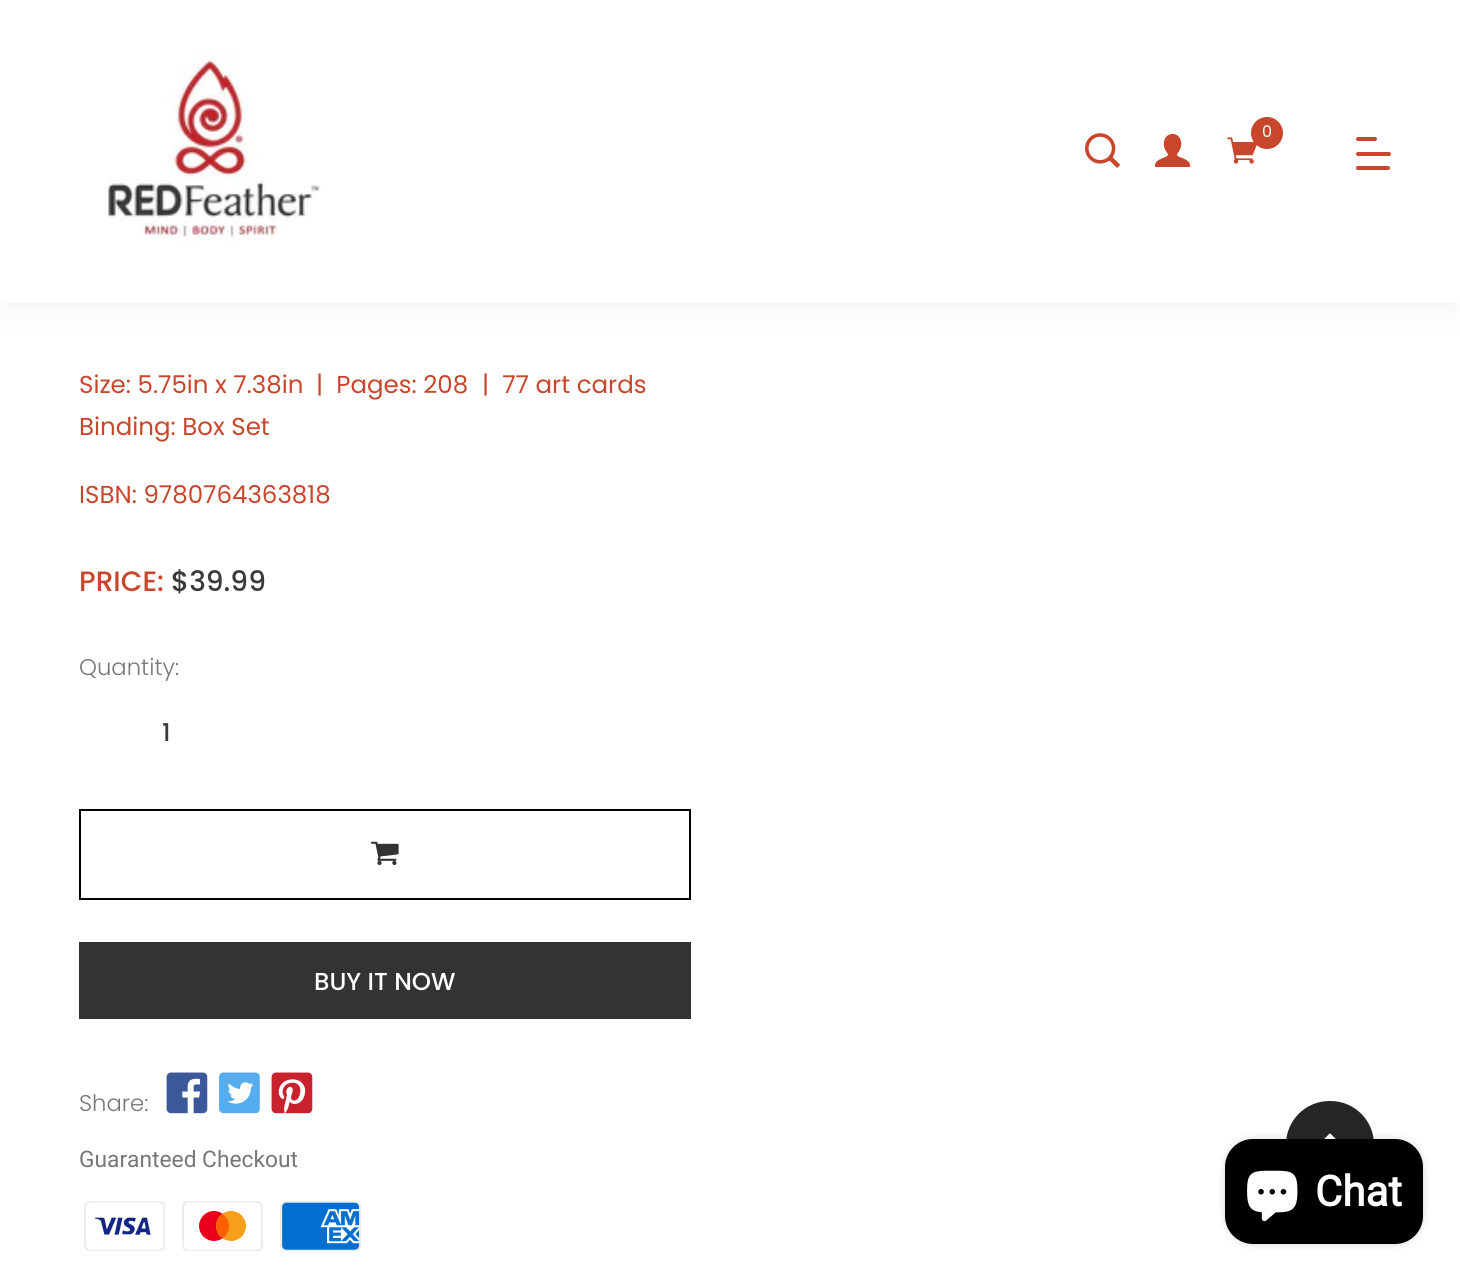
#include <cairo.h>
#include <math.h>
#include <stddef.h>


static void round_rect(cairo_t *cr, double x, double y, double w, double h, double r) {
    cairo_new_sub_path(cr);
    cairo_arc(cr, x + w - r, y + h - r, r, 0, M_PI / 2);
    cairo_arc(cr, x + r, y + h - r, r, M_PI / 2, M_PI);
    cairo_arc(cr, x + r, y + r, r, M_PI, 1.5 * M_PI);
    cairo_arc(cr, x + w - r, y + r, r, 1.5 * M_PI, 2 * M_PI);
    cairo_close_path(cr);
}

static void shadow(cairo_t *cr, double x, double y, double w, double h, double r, double blur, double alpha) {
    cairo_push_group_with_content(cr, CAIRO_CONTENT_ALPHA);
    cairo_set_operator(cr, CAIRO_OPERATOR_SOURCE);
    for (int i = 15; i >= -15 && fmin(w, h) + blur * i / 3 > 0; i -= 2) {
        double e = blur * i / 6;
        cairo_set_source_rgba(cr, 0, 0, 0, alpha * erfc((i - 1) / 8.5) / 2);
        round_rect(cr, x - e, y - e, w + 2 * e, h + 2 * e, fmax(0, fmin(r + e + blur * .6, fmin(w, h) / 2 + e)));
        cairo_fill(cr);
    }
    cairo_pattern_t *soft = cairo_pop_group(cr);
    cairo_mask(cr, soft);
    cairo_pattern_destroy(soft);
}

static void picture(cairo_t *cr, const char *path, double x, double y, double w, double h) {
    cairo_surface_t *image = cairo_image_surface_create_from_png(path);
    cairo_save(cr);
    cairo_set_source_surface(cr, image, x, y);
    cairo_rectangle(cr, x, y, w, h);
    cairo_fill(cr);
    cairo_restore(cr);
    cairo_surface_destroy(image);
}

int main(void) {
    cairo_surface_t *surface = cairo_image_surface_create(CAIRO_FORMAT_RGB24, 1460, 1280);
    cairo_t *cr = cairo_create(surface);
    cairo_font_options_t *options = cairo_font_options_create();
    cairo_font_options_set_hint_metrics(options, CAIRO_HINT_METRICS_OFF);
    cairo_font_options_set_hint_style(options, CAIRO_HINT_STYLE_NONE);
    cairo_set_font_options(cr, options);
    cairo_set_miter_limit(cr, 4);
    cairo_set_source_rgb(cr, 1, 1, 1);
    cairo_paint(cr);
    cairo_set_source_rgb(cr, 0, 0, 0);
    shadow(cr, 0, 0, 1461, 303, 0, 22, 0.06);
    cairo_set_source_rgb(cr, 1, 1, 1);
    cairo_rectangle(cr, 0, 0, 1460, 303);
    cairo_fill(cr);
    picture(cr, "img1.png", 108, 52, 213, 189);
    picture(cr, "img2.png", 1227, 137, 30, 27);
    cairo_set_source_rgb(cr, 0.784, 0.275, 0.169);
    cairo_arc(cr, 1267, 133, 16, 0, 2 * M_PI);
    cairo_fill(cr);
    cairo_select_font_face(cr, "Poppins", CAIRO_FONT_SLANT_NORMAL, CAIRO_FONT_WEIGHT_NORMAL);
    cairo_set_font_size(cr, 16);
    cairo_set_source_rgb(cr, 1, 1, 1);
    cairo_move_to(cr, 1262, 137);
    cairo_show_text(cr, "0");
    picture(cr, "img3.png", 1085, 133, 35, 35);
    picture(cr, "img4.png", 1155, 134, 35, 33);
    cairo_set_source_rgb(cr, 0.784, 0.275, 0.169);
    round_rect(cr, 1356, 137, 21, 4, 2);
    cairo_fill(cr);
    round_rect(cr, 1356, 152, 35, 4, 2);
    cairo_fill(cr);
    round_rect(cr, 1356, 166, 34, 4, 2);
    cairo_fill(cr);
    cairo_set_font_size(cr, 24.5);
    cairo_move_to(cr, 79, 393);
    cairo_show_text(cr, "Size: 5.75in x 7.38in");
    cairo_move_to(cr, 316, 393);
    cairo_show_text(cr, "|  Pages: 208");
    cairo_move_to(cr, 482, 393);
    cairo_show_text(cr, "|  77 art cards");
    cairo_move_to(cr, 79, 435);
    cairo_show_text(cr, "Binding: Box Set");
    cairo_move_to(cr, 79, 503);
    cairo_show_text(cr, "ISBN: 9780764363818");
    cairo_select_font_face(cr, "Poppins Medium", CAIRO_FONT_SLANT_NORMAL, CAIRO_FONT_WEIGHT_NORMAL);
    cairo_set_font_size(cr, 28);
    cairo_move_to(cr, 79, 591);
    cairo_show_text(cr, "PRICE:");
    cairo_set_source_rgb(cr, 0.227, 0.227, 0.227);
    cairo_move_to(cr, 171, 591);
    cairo_show_text(cr, "$39.99");
    cairo_select_font_face(cr, "Poppins Light", CAIRO_FONT_SLANT_NORMAL, CAIRO_FONT_WEIGHT_NORMAL);
    cairo_set_font_size(cr, 22.75);
    cairo_set_source_rgb(cr, 0.467, 0.467, 0.467);
    cairo_move_to(cr, 79, 675);
    cairo_show_text(cr, "Quantity:");
    cairo_select_font_face(cr, "Poppins Medium", CAIRO_FONT_SLANT_NORMAL, CAIRO_FONT_WEIGHT_NORMAL);
    cairo_set_font_size(cr, 24.5);
    cairo_set_source_rgb(cr, 0.227, 0.227, 0.227);
    cairo_move_to(cr, 162, 741);
    cairo_show_text(cr, "1");
    cairo_rectangle(cr, 80, 810, 610, 89);
    cairo_set_source_rgb(cr, 0, 0, 0);
    cairo_stroke(cr);
    picture(cr, "img5.png", 371, 841, 28, 25);
    cairo_set_source_rgb(cr, 0.2, 0.2, 0.2);
    cairo_rectangle(cr, 79, 942, 612, 77);
    cairo_fill(cr);
    cairo_set_source_rgb(cr, 1, 1, 1);
    cairo_move_to(cr, 314, 990);
    cairo_show_text(cr, "BUY IT NOW");
    cairo_select_font_face(cr, "Poppins Light", CAIRO_FONT_SLANT_NORMAL, CAIRO_FONT_WEIGHT_NORMAL);
    cairo_set_font_size(cr, 22.75);
    cairo_set_source_rgb(cr, 0.467, 0.467, 0.467);
    cairo_move_to(cr, 79, 1111);
    cairo_show_text(cr, "Share:");
    picture(cr, "img6.png", 166, 1072, 42, 42);
    picture(cr, "img7.png", 219, 1072, 41, 42);
    picture(cr, "img8.png", 271, 1072, 42, 42);
    cairo_select_font_face(cr, "Roboto", CAIRO_FONT_SLANT_NORMAL, CAIRO_FONT_WEIGHT_NORMAL);
    cairo_move_to(cr, 79, 1167);
    cairo_show_text(cr, "Guaranteed Checkout");
    picture(cr, "img9.png", 84, 1201, 81, 50);
    picture(cr, "img10.png", 182, 1201, 81, 50);
    picture(cr, "img11.png", 280, 1201, 81, 50);
    cairo_set_source_rgb(cr, 0.149, 0.149, 0.149);
    round_rect(cr, 1286, 1101, 88, 87, 43.5);
    cairo_fill(cr);
    picture(cr, "img12.png", 1324, 1133, 12, 6);
    cairo_set_source_rgb(cr, 0, 0, 0);
    shadow(cr, 1225, 1139, 198, 105, 28, 4.5, 0.15);
    cairo_set_source_rgb(cr, 0, 0, 0);
    round_rect(cr, 1225, 1139, 198, 105, 28);
    cairo_fill(cr);
    picture(cr, "img13.png", 1247, 1170, 51, 52);
    cairo_select_font_face(cr, "Roboto", CAIRO_FONT_SLANT_NORMAL, CAIRO_FONT_WEIGHT_BOLD);
    cairo_set_font_size(cr, 42);
    cairo_set_source_rgb(cr, 1, 1, 1);
    cairo_move_to(cr, 1315, 1206);
    cairo_show_text(cr, "Chat");
    cairo_surface_write_to_png(surface, "page.png");
    cairo_font_options_destroy(options);
    cairo_destroy(cr);
    cairo_surface_destroy(surface);
    return 0;
}
